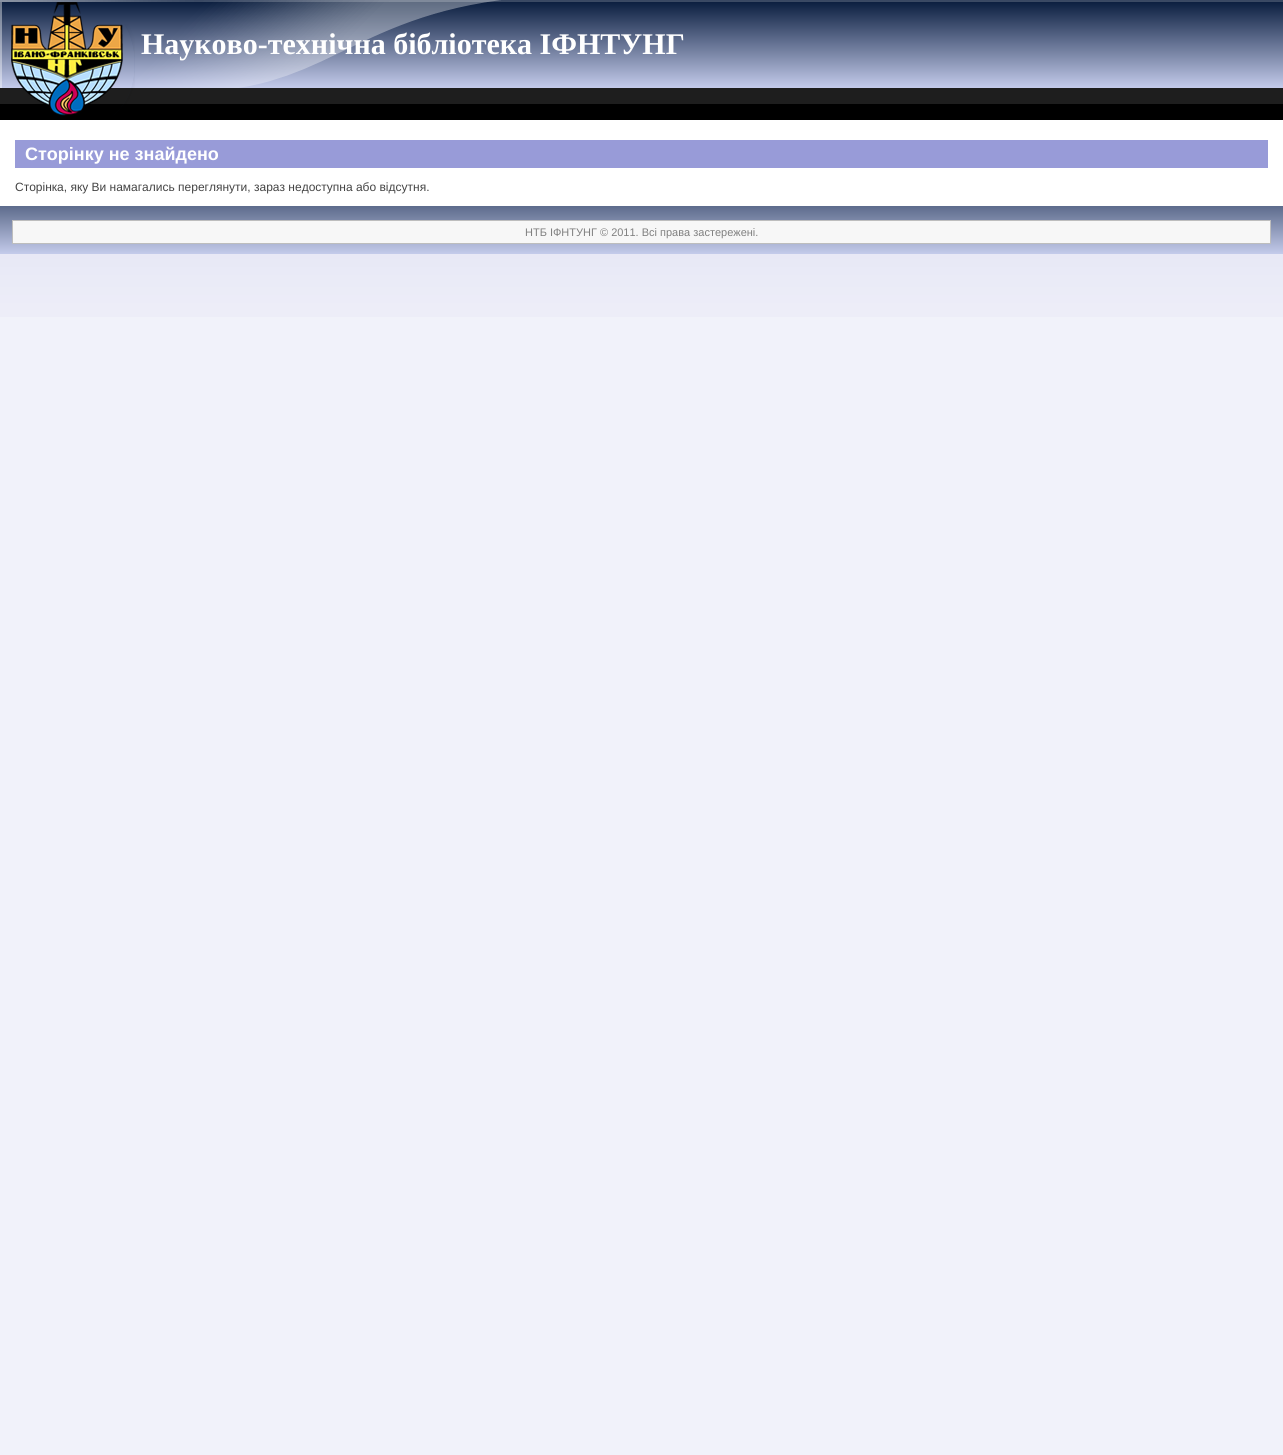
#include <cairo.h>
#include <math.h>
#include <stddef.h>


static void picture(cairo_t *cr, const char *path, double x, double y, double w, double h) {
    cairo_surface_t *image = cairo_image_surface_create_from_png(path);
    cairo_save(cr);
    cairo_set_source_surface(cr, image, x, y);
    cairo_rectangle(cr, x, y, w, h);
    cairo_fill(cr);
    cairo_restore(cr);
    cairo_surface_destroy(image);
}

int main(void) {
    cairo_surface_t *surface = cairo_image_surface_create(CAIRO_FORMAT_RGB24, 1283, 1455);
    cairo_t *cr = cairo_create(surface);
    cairo_font_options_t *options = cairo_font_options_create();
    cairo_font_options_set_hint_metrics(options, CAIRO_HINT_METRICS_OFF);
    cairo_font_options_set_hint_style(options, CAIRO_HINT_STYLE_NONE);
    cairo_set_font_options(cr, options);
    cairo_set_miter_limit(cr, 4);
    cairo_set_source_rgb(cr, 0.945, 0.949, 0.98);
    cairo_paint(cr);
    picture(cr, "img1.png", 0, 254, 1283, 63);
    cairo_set_source_rgb(cr, 1, 1, 1);
    cairo_rectangle(cr, 0, 120, 1283, 86);
    cairo_fill(cr);
    picture(cr, "img2.png", 0, 0, 1283, 120);
    picture(cr, "img3.png", 0, 0, 501, 88);
    picture(cr, "img4.png", 11, 2, 124, 114);
    cairo_select_font_face(cr, "Liberation Serif", CAIRO_FONT_SLANT_NORMAL, CAIRO_FONT_WEIGHT_BOLD);
    cairo_set_font_size(cr, 30);
    cairo_move_to(cr, 141, 54);
    cairo_show_text(cr, "Науково-технічна бібліотека ІФНТУНГ");
    cairo_set_source_rgb(cr, 0.596, 0.608, 0.847);
    cairo_rectangle(cr, 15, 140, 1253, 28);
    cairo_fill(cr);
    cairo_select_font_face(cr, "Liberation Sans", CAIRO_FONT_SLANT_NORMAL, CAIRO_FONT_WEIGHT_BOLD);
    cairo_set_font_size(cr, 18);
    cairo_set_source_rgb(cr, 1, 1, 1);
    cairo_move_to(cr, 25, 160);
    cairo_show_text(cr, "Сторінку не знайдено");
    cairo_select_font_face(cr, "Liberation Sans", CAIRO_FONT_SLANT_NORMAL, CAIRO_FONT_WEIGHT_NORMAL);
    cairo_set_font_size(cr, 12);
    cairo_set_source_rgb(cr, 0.267, 0.267, 0.267);
    cairo_move_to(cr, 15, 191);
    cairo_show_text(cr, "Сторінка, яку Ви намагались переглянути, зараз недоступна або відсутня.");
    picture(cr, "img5.png", 0, 206, 1283, 48);
    cairo_set_source_rgb(cr, 0.965, 0.965, 0.965);
    cairo_rectangle(cr, 12.5, 220.5, 1258, 23);
    cairo_fill_preserve(cr);
    cairo_set_source_rgb(cr, 0.741, 0.741, 0.741);
    cairo_set_line_width(cr, 1);
    cairo_stroke(cr);
    cairo_set_font_size(cr, 11);
    cairo_set_source_rgb(cr, 0.502, 0.502, 0.502);
    cairo_move_to(cr, 525, 236);
    cairo_show_text(cr, "НТБ ІФНТУНГ © 2011. Всі права застережені.");
    cairo_surface_write_to_png(surface, "page.png");
    cairo_font_options_destroy(options);
    cairo_destroy(cr);
    cairo_surface_destroy(surface);
    return 0;
}
